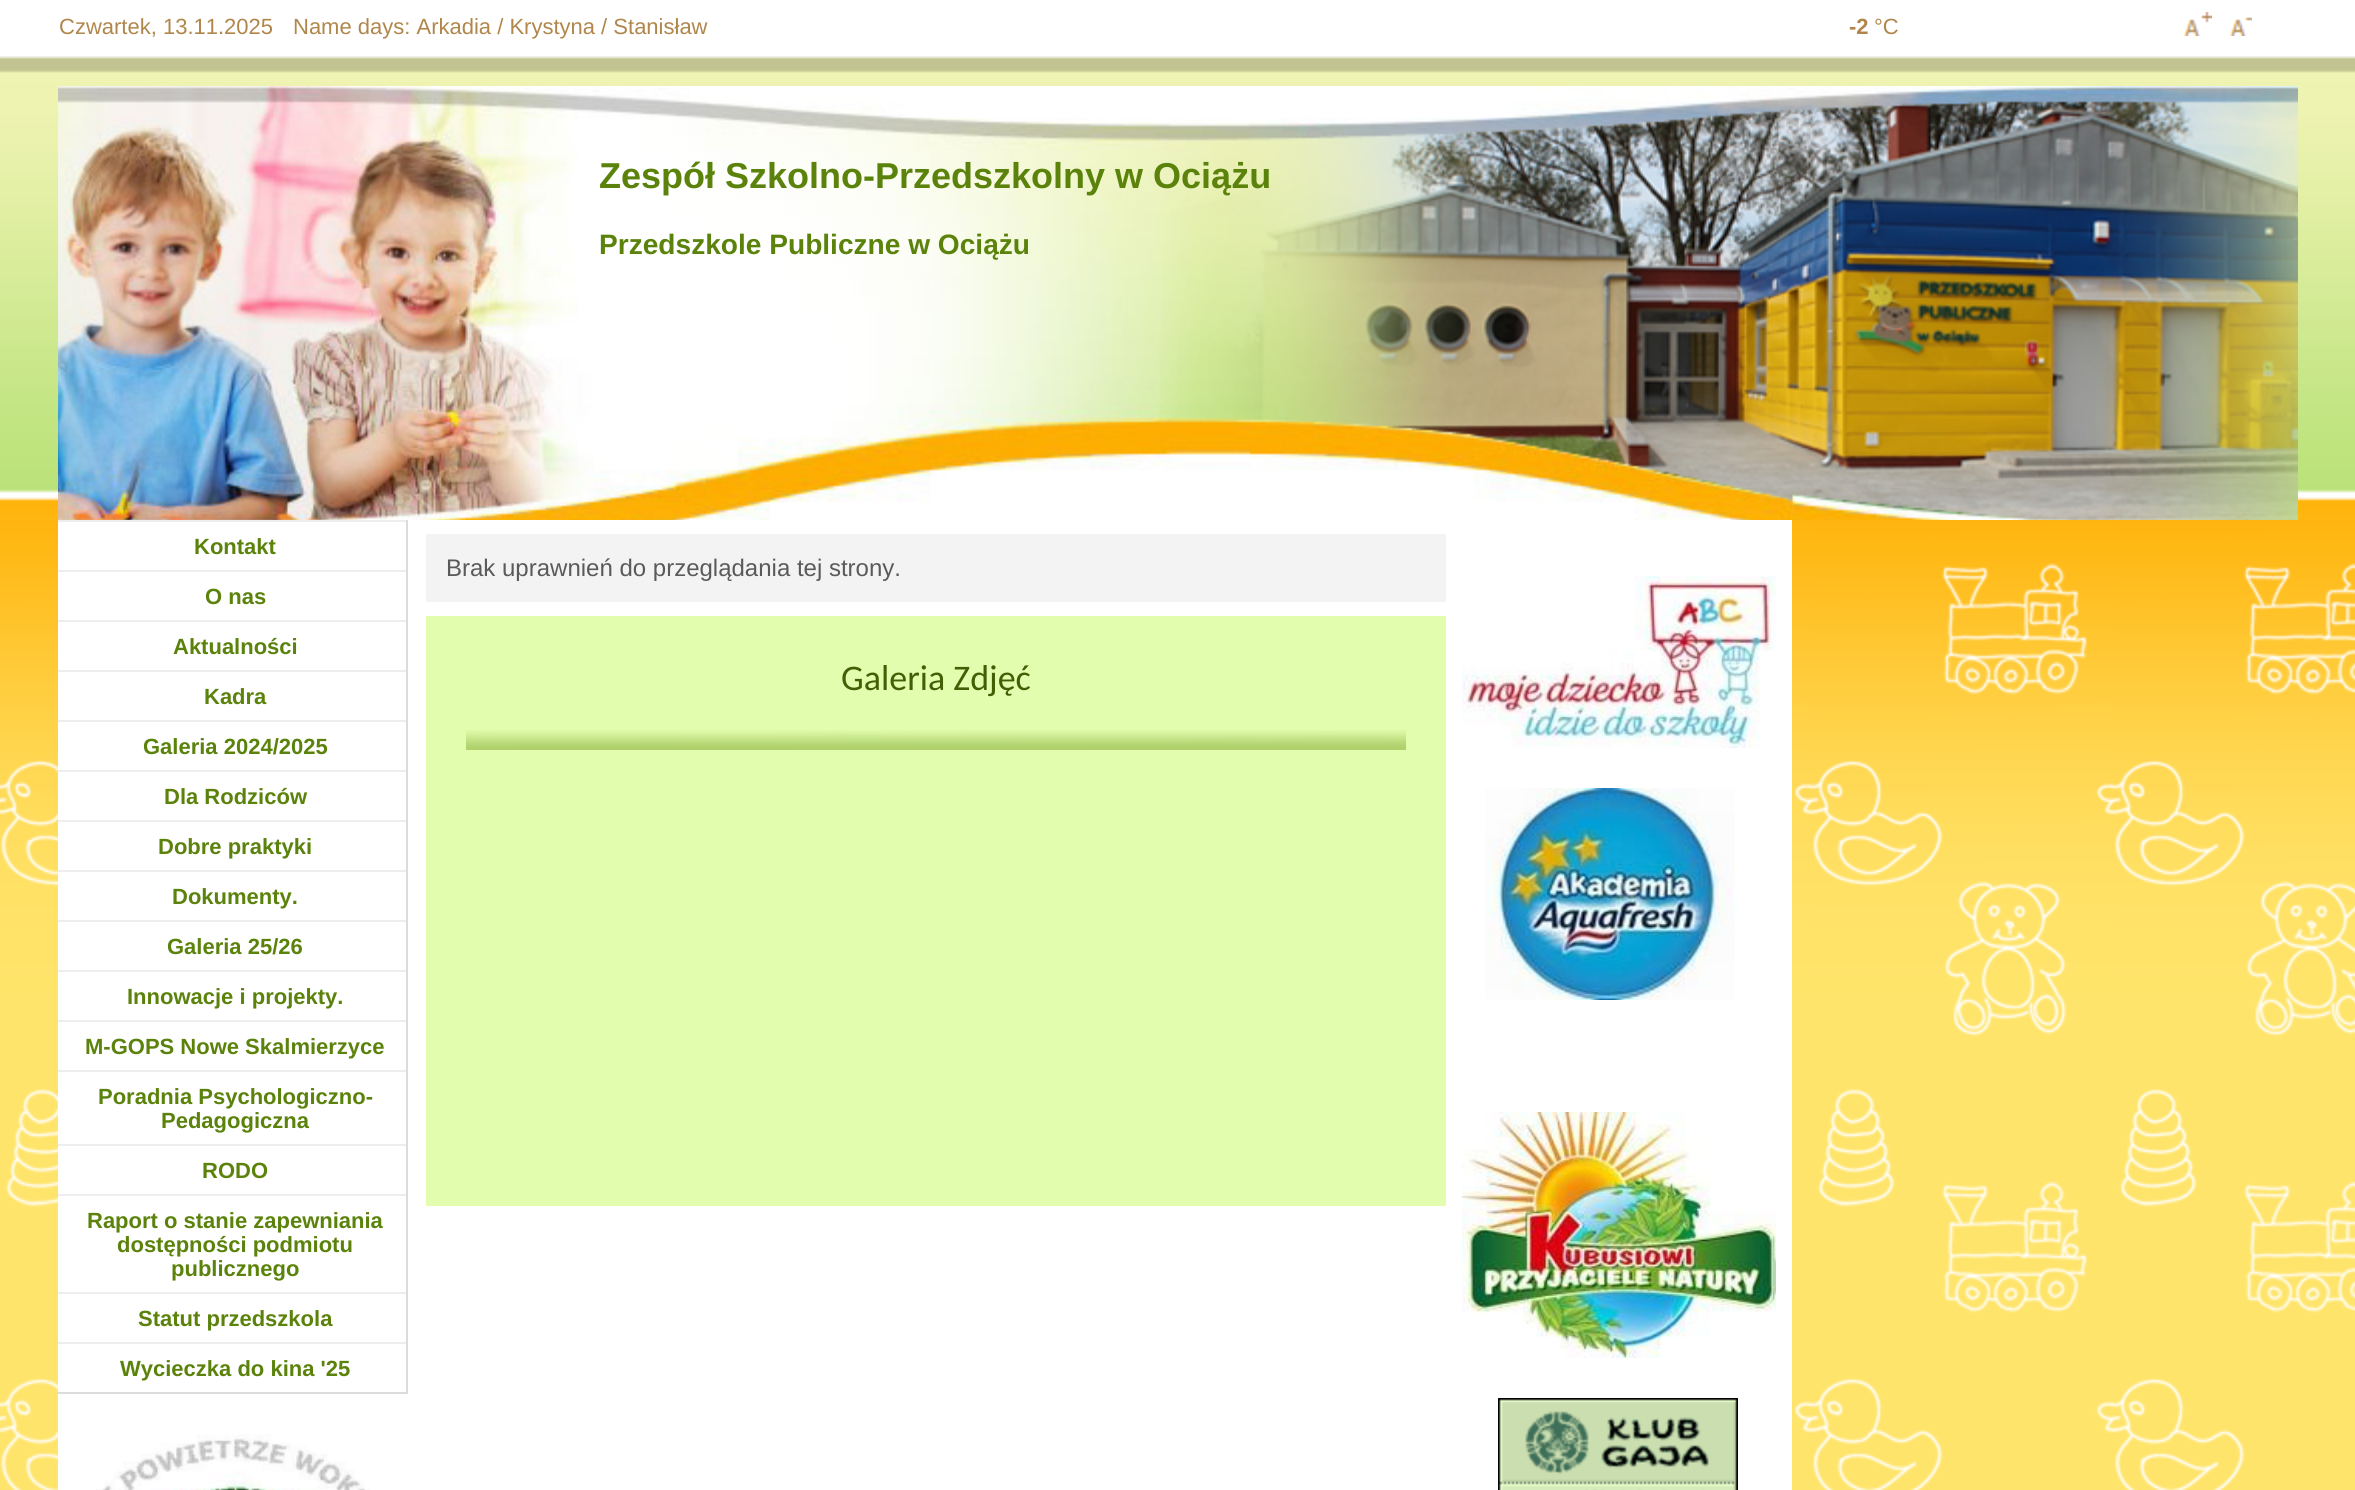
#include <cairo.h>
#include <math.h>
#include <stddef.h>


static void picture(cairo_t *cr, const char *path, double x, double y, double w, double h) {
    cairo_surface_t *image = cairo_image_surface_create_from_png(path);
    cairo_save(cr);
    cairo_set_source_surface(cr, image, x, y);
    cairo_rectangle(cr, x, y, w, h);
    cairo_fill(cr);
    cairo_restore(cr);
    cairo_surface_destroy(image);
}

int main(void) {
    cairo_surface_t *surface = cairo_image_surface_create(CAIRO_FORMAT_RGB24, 2355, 1490);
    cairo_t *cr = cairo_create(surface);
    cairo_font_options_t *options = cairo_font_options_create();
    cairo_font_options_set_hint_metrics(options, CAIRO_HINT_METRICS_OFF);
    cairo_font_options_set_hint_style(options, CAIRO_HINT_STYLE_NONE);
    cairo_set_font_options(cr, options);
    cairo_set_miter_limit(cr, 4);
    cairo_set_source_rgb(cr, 1, 1, 1);
    cairo_paint(cr);
    cairo_select_font_face(cr, "Liberation Sans", CAIRO_FONT_SLANT_NORMAL, CAIRO_FONT_WEIGHT_NORMAL);
    cairo_set_font_size(cr, 22);
    cairo_set_source_rgb(cr, 0.69, 0.525, 0.294);
    cairo_move_to(cr, 59, 34);
    cairo_show_text(cr, "Czwartek, 13.11.2025");
    cairo_move_to(cr, 293, 34);
    cairo_show_text(cr, "Name days: Arkadia / Krystyna / Stanisław");
    cairo_select_font_face(cr, "Liberation Sans", CAIRO_FONT_SLANT_NORMAL, CAIRO_FONT_WEIGHT_BOLD);
    cairo_move_to(cr, 1849, 34);
    cairo_show_text(cr, "-2");
    cairo_select_font_face(cr, "Liberation Sans", CAIRO_FONT_SLANT_NORMAL, CAIRO_FONT_WEIGHT_NORMAL);
    cairo_move_to(cr, 1874, 34);
    cairo_show_text(cr, "°C");
    picture(cr, "img1.png", 2184, 12, 28, 24);
    picture(cr, "img2.png", 2229, 17, 23, 19);
    picture(cr, "img3.png", 0, 56, 2355, 464);
    picture(cr, "img4.png", 58, 86, 2240, 434);
    cairo_select_font_face(cr, "Liberation Sans", CAIRO_FONT_SLANT_NORMAL, CAIRO_FONT_WEIGHT_BOLD);
    cairo_set_font_size(cr, 36);
    cairo_set_source_rgb(cr, 0.357, 0.514, 0.047);
    cairo_move_to(cr, 599, 188);
    cairo_show_text(cr, "Zespół Szkolno-Przedszkolny w Ociążu");
    cairo_set_font_size(cr, 28.1);
    cairo_move_to(cr, 599, 254);
    cairo_show_text(cr, "Przedszkole Publiczne w Ociążu");
    picture(cr, "img5.png", 0, 520, 2355, 970);
    cairo_set_source_rgb(cr, 1, 1, 1);
    cairo_rectangle(cr, 58, 520, 1734, 970);
    cairo_fill(cr);
    cairo_set_source_rgb(cr, 0.863, 0.863, 0.863);
    cairo_rectangle(cr, 406, 520, 2, 874);
    cairo_fill(cr);
    cairo_rectangle(cr, 58, 1392, 350, 2);
    cairo_fill(cr);
    cairo_set_source_rgb(cr, 0.933, 0.933, 0.933);
    cairo_rectangle(cr, 58, 520, 348, 2);
    cairo_fill(cr);
    cairo_set_font_size(cr, 22);
    cairo_set_source_rgb(cr, 0.357, 0.514, 0.047);
    cairo_move_to(cr, 194, 554);
    cairo_show_text(cr, "Kontakt");
    cairo_set_source_rgb(cr, 0.933, 0.933, 0.933);
    cairo_rectangle(cr, 58, 570, 348, 2);
    cairo_fill(cr);
    cairo_set_source_rgb(cr, 0.357, 0.514, 0.047);
    cairo_move_to(cr, 205, 604);
    cairo_show_text(cr, "O nas");
    cairo_set_source_rgb(cr, 0.933, 0.933, 0.933);
    cairo_rectangle(cr, 58, 620, 348, 2);
    cairo_fill(cr);
    cairo_set_source_rgb(cr, 0.357, 0.514, 0.047);
    cairo_move_to(cr, 173, 654);
    cairo_show_text(cr, "Aktualności");
    cairo_set_source_rgb(cr, 0.933, 0.933, 0.933);
    cairo_rectangle(cr, 58, 670, 348, 2);
    cairo_fill(cr);
    cairo_set_source_rgb(cr, 0.357, 0.514, 0.047);
    cairo_move_to(cr, 204, 704);
    cairo_show_text(cr, "Kadra");
    cairo_set_source_rgb(cr, 0.933, 0.933, 0.933);
    cairo_rectangle(cr, 58, 720, 348, 2);
    cairo_fill(cr);
    cairo_set_source_rgb(cr, 0.357, 0.514, 0.047);
    cairo_move_to(cr, 143, 754);
    cairo_show_text(cr, "Galeria 2024/2025");
    cairo_set_source_rgb(cr, 0.933, 0.933, 0.933);
    cairo_rectangle(cr, 58, 770, 348, 2);
    cairo_fill(cr);
    cairo_set_source_rgb(cr, 0.357, 0.514, 0.047);
    cairo_move_to(cr, 164, 804);
    cairo_show_text(cr, "Dla Rodziców");
    cairo_set_source_rgb(cr, 0.933, 0.933, 0.933);
    cairo_rectangle(cr, 58, 820, 348, 2);
    cairo_fill(cr);
    cairo_set_source_rgb(cr, 0.357, 0.514, 0.047);
    cairo_move_to(cr, 158, 854);
    cairo_show_text(cr, "Dobre praktyki");
    cairo_set_source_rgb(cr, 0.933, 0.933, 0.933);
    cairo_rectangle(cr, 58, 870, 348, 2);
    cairo_fill(cr);
    cairo_set_source_rgb(cr, 0.357, 0.514, 0.047);
    cairo_move_to(cr, 172, 904);
    cairo_show_text(cr, "Dokumenty.");
    cairo_set_source_rgb(cr, 0.933, 0.933, 0.933);
    cairo_rectangle(cr, 58, 920, 348, 2);
    cairo_fill(cr);
    cairo_set_source_rgb(cr, 0.357, 0.514, 0.047);
    cairo_move_to(cr, 167, 954);
    cairo_show_text(cr, "Galeria 25/26");
    cairo_set_source_rgb(cr, 0.933, 0.933, 0.933);
    cairo_rectangle(cr, 58, 970, 348, 2);
    cairo_fill(cr);
    cairo_set_source_rgb(cr, 0.357, 0.514, 0.047);
    cairo_move_to(cr, 127, 1004);
    cairo_show_text(cr, "Innowacje i projekty.");
    cairo_set_source_rgb(cr, 0.933, 0.933, 0.933);
    cairo_rectangle(cr, 58, 1020, 348, 2);
    cairo_fill(cr);
    cairo_set_source_rgb(cr, 0.357, 0.514, 0.047);
    cairo_move_to(cr, 85, 1054);
    cairo_show_text(cr, "M-GOPS Nowe Skalmierzyce");
    cairo_set_source_rgb(cr, 0.933, 0.933, 0.933);
    cairo_rectangle(cr, 58, 1070, 348, 2);
    cairo_fill(cr);
    cairo_set_source_rgb(cr, 0.357, 0.514, 0.047);
    cairo_move_to(cr, 98, 1104);
    cairo_show_text(cr, "Poradnia Psychologiczno-");
    cairo_move_to(cr, 161, 1128);
    cairo_show_text(cr, "Pedagogiczna");
    cairo_set_source_rgb(cr, 0.933, 0.933, 0.933);
    cairo_rectangle(cr, 58, 1144, 348, 2);
    cairo_fill(cr);
    cairo_set_source_rgb(cr, 0.357, 0.514, 0.047);
    cairo_move_to(cr, 202, 1178);
    cairo_show_text(cr, "RODO");
    cairo_set_source_rgb(cr, 0.933, 0.933, 0.933);
    cairo_rectangle(cr, 58, 1194, 348, 2);
    cairo_fill(cr);
    cairo_set_source_rgb(cr, 0.357, 0.514, 0.047);
    cairo_move_to(cr, 87, 1228);
    cairo_show_text(cr, "Raport o stanie zapewniania");
    cairo_move_to(cr, 117, 1252);
    cairo_show_text(cr, "dostępności podmiotu");
    cairo_move_to(cr, 171, 1276);
    cairo_show_text(cr, "publicznego");
    cairo_set_source_rgb(cr, 0.933, 0.933, 0.933);
    cairo_rectangle(cr, 58, 1292, 348, 2);
    cairo_fill(cr);
    cairo_set_source_rgb(cr, 0.357, 0.514, 0.047);
    cairo_move_to(cr, 138, 1326);
    cairo_show_text(cr, "Statut przedszkola");
    cairo_set_source_rgb(cr, 0.933, 0.933, 0.933);
    cairo_rectangle(cr, 58, 1342, 348, 2);
    cairo_fill(cr);
    cairo_set_source_rgb(cr, 0.357, 0.514, 0.047);
    cairo_move_to(cr, 120, 1376);
    cairo_show_text(cr, "Wycieczka do kina '25");
    picture(cr, "img6.png", 96, 1434, 274, 56);
    cairo_set_source_rgb(cr, 0.953, 0.953, 0.953);
    cairo_rectangle(cr, 426, 534, 1020, 68);
    cairo_fill(cr);
    cairo_select_font_face(cr, "Liberation Sans", CAIRO_FONT_SLANT_NORMAL, CAIRO_FONT_WEIGHT_NORMAL);
    cairo_set_font_size(cr, 24);
    cairo_set_source_rgb(cr, 0.353, 0.353, 0.353);
    cairo_move_to(cr, 446, 576);
    cairo_show_text(cr, "Brak uprawnień do przeglądania tej strony.");
    cairo_set_source_rgb(cr, 0.886, 0.992, 0.678);
    cairo_rectangle(cr, 426, 616, 1020, 590);
    cairo_fill(cr);
    cairo_select_font_face(cr, "Carlito", CAIRO_FONT_SLANT_NORMAL, CAIRO_FONT_WEIGHT_NORMAL);
    cairo_set_font_size(cr, 36);
    cairo_set_source_rgb(cr, 0.259, 0.373, 0.027);
    cairo_move_to(cr, 841, 690);
    cairo_show_text(cr, "Galeria Zdjęć");
    picture(cr, "img7.png", 466, 730, 940, 20);
    picture(cr, "img8.png", 1462, 576, 314, 172);
    picture(cr, "img9.png", 1485, 788, 250, 212);
    picture(cr, "img10.png", 1462, 1112, 314, 246);
    picture(cr, "img11.png", 1498, 1398, 240, 92);
    cairo_surface_write_to_png(surface, "page.png");
    cairo_font_options_destroy(options);
    cairo_destroy(cr);
    cairo_surface_destroy(surface);
    return 0;
}
